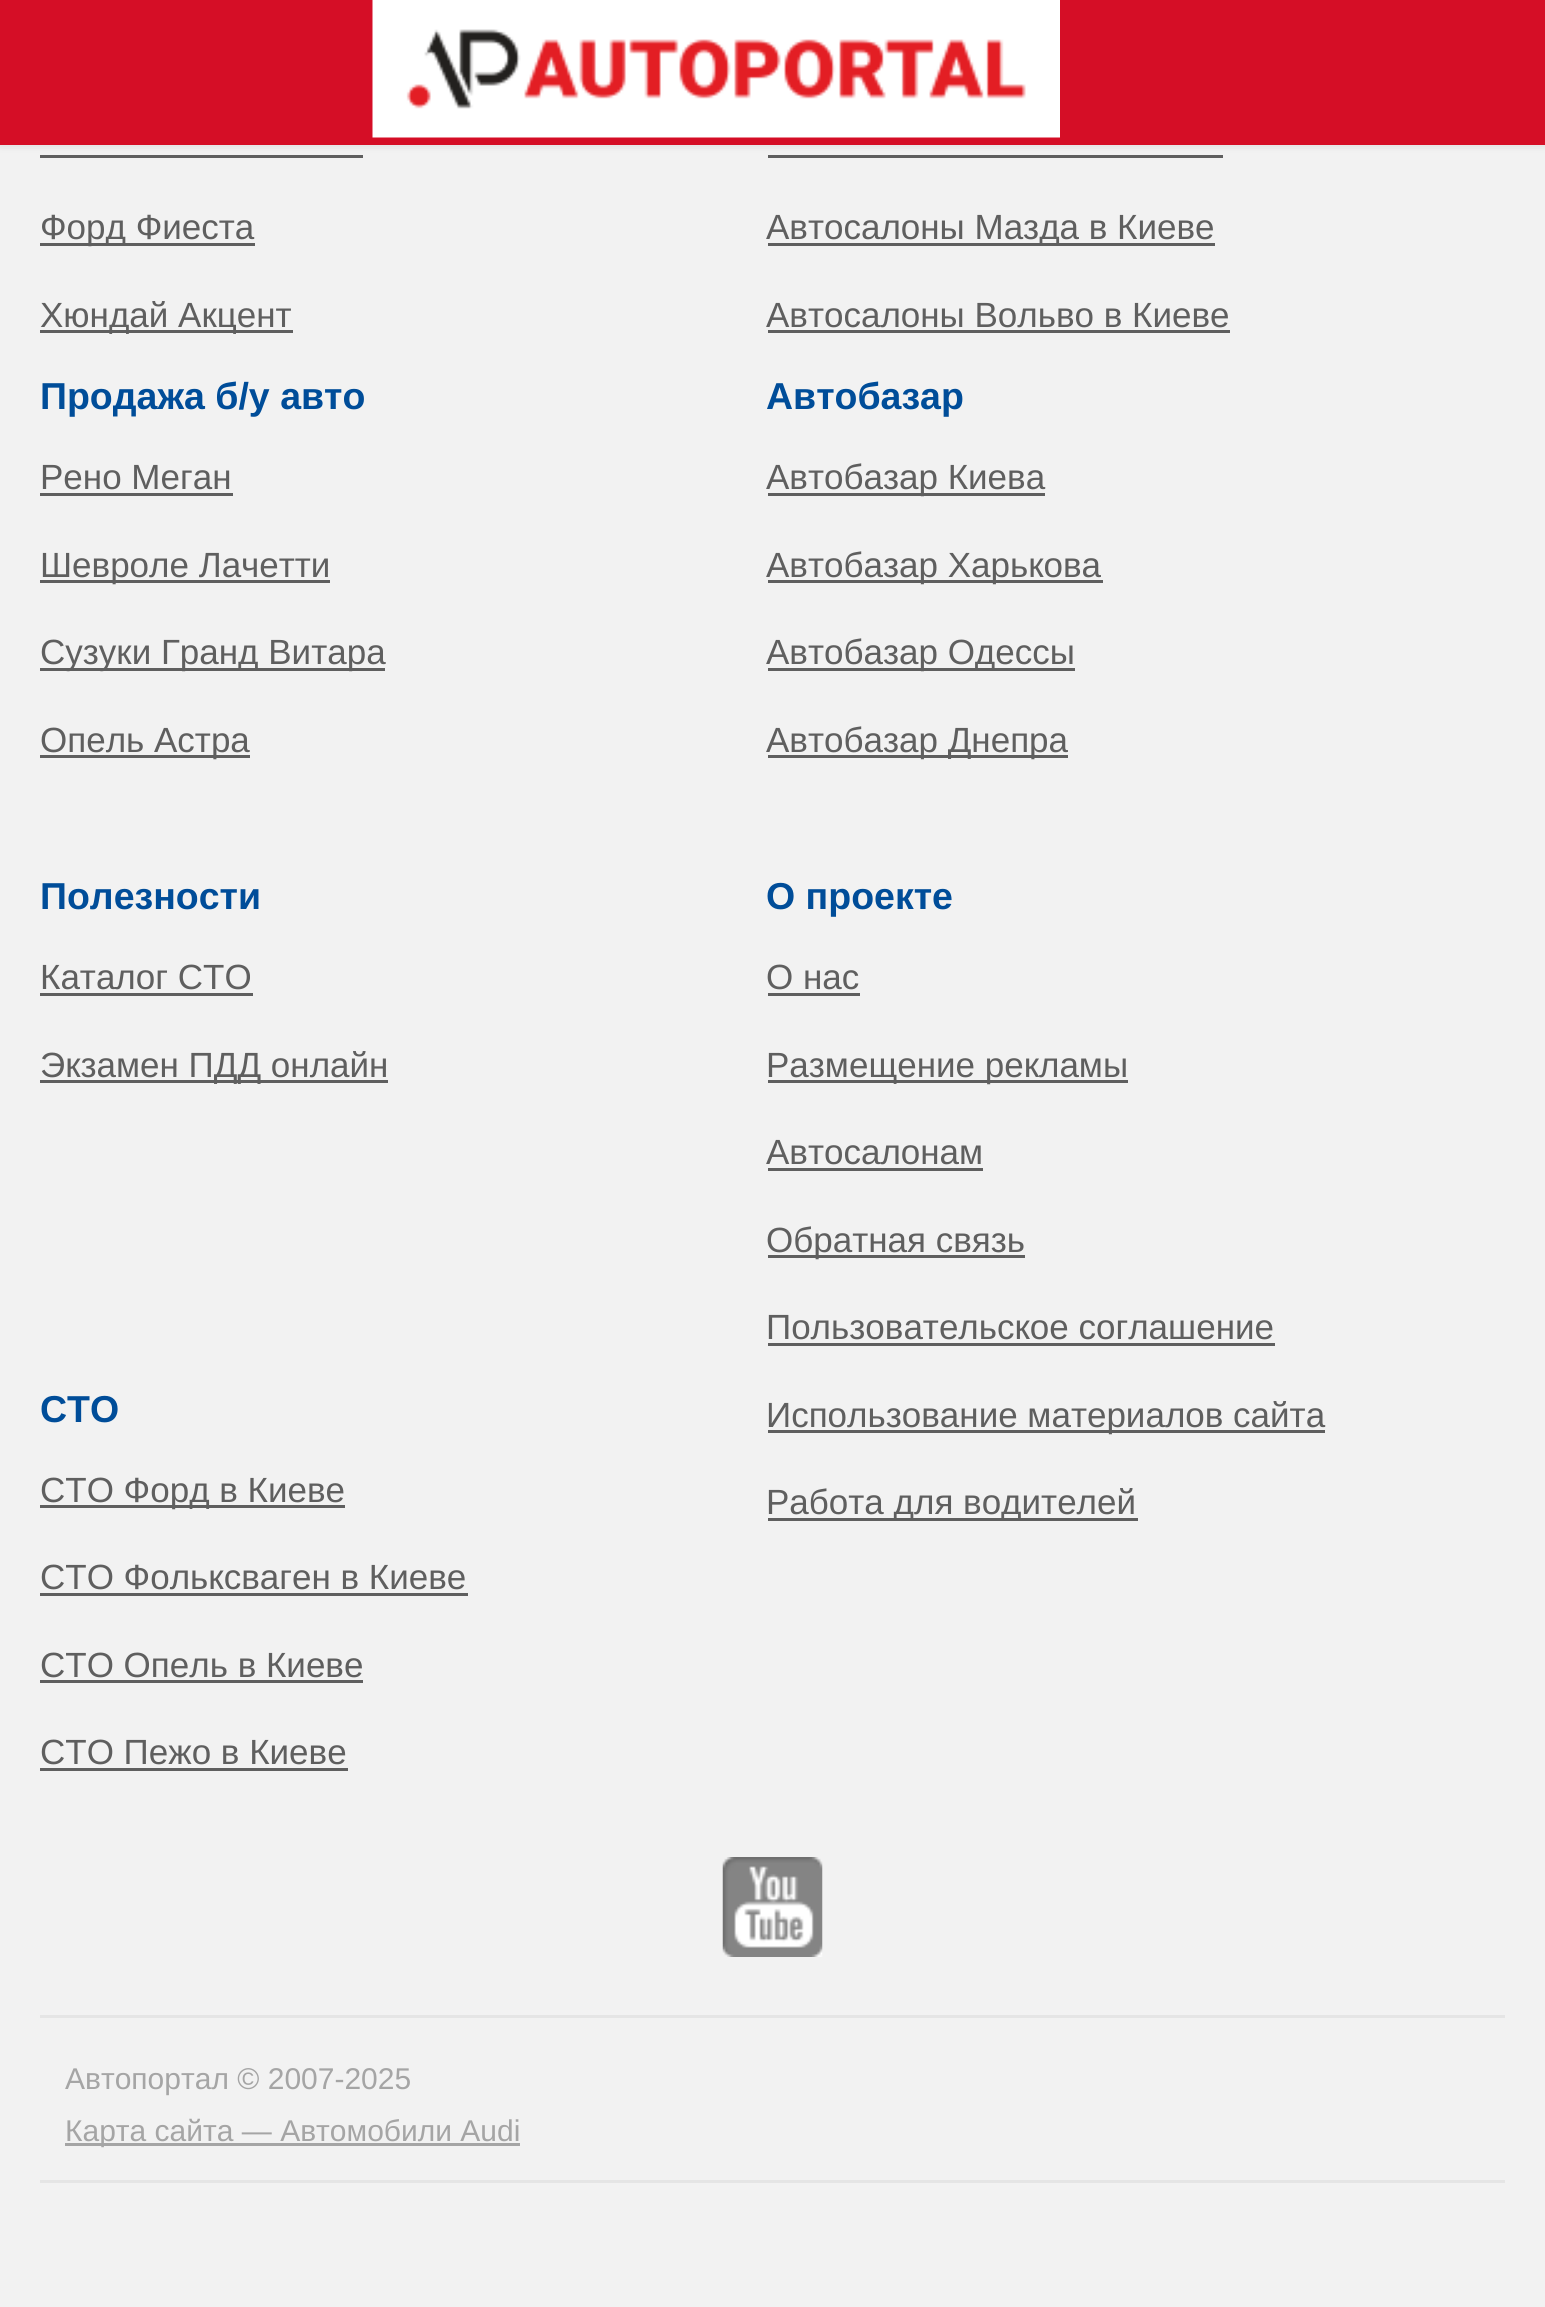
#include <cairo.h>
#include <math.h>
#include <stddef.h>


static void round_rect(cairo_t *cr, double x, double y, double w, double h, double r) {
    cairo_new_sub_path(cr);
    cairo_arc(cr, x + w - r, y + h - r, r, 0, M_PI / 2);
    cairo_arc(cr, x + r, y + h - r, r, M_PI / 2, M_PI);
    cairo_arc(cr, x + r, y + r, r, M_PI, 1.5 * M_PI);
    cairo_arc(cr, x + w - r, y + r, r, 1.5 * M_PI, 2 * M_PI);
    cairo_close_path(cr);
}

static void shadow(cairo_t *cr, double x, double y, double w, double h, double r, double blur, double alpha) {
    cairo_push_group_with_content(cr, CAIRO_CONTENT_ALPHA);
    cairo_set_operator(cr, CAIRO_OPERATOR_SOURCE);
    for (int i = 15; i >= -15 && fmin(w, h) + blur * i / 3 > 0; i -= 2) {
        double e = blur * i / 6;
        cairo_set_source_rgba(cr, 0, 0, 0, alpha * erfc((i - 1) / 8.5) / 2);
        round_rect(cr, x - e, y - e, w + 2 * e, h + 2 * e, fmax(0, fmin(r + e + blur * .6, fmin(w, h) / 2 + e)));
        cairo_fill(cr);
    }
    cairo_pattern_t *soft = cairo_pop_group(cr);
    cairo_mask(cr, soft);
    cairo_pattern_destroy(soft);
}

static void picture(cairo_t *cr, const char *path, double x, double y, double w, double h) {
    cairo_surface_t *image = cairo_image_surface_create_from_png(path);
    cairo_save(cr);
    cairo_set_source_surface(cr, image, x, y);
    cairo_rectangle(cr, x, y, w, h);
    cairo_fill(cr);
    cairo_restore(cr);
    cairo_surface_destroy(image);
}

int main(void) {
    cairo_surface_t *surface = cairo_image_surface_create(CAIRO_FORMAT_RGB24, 1545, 2307);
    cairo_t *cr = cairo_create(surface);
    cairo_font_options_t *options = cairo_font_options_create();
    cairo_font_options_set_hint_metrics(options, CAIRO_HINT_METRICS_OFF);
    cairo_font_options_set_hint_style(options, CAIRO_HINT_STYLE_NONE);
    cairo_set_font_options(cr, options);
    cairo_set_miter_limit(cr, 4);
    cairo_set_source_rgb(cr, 0.949, 0.949, 0.949);
    cairo_paint(cr);
    cairo_set_source_rgb(cr, 0.373, 0.373, 0.373);
    cairo_rectangle(cr, 40, 155, 323, 3);
    cairo_fill(cr);
    cairo_rectangle(cr, 768, 155, 455, 3);
    cairo_fill(cr);
    cairo_set_source_rgb(cr, 0, 0, 0);
    shadow(cr, 0, 3, 1545, 137, 0, 6, 0.3);
    cairo_set_source_rgb(cr, 0.835, 0.055, 0.149);
    cairo_rectangle(cr, 0, 0, 1545, 145);
    cairo_fill(cr);
    picture(cr, "img1.png", 372, 0, 688, 138);
    cairo_set_source_rgb(cr, 0.373, 0.373, 0.373);
    cairo_rectangle(cr, 40, 243, 215, 3);
    cairo_fill(cr);
    cairo_select_font_face(cr, "Liberation Sans", CAIRO_FONT_SLANT_NORMAL, CAIRO_FONT_WEIGHT_NORMAL);
    cairo_set_font_size(cr, 35);
    cairo_move_to(cr, 40, 239);
    cairo_show_text(cr, "Форд Фиеста");
    cairo_rectangle(cr, 40, 330, 253, 3);
    cairo_fill(cr);
    cairo_move_to(cr, 40, 327);
    cairo_show_text(cr, "Хюндай Акцент");
    cairo_select_font_face(cr, "Liberation Sans", CAIRO_FONT_SLANT_NORMAL, CAIRO_FONT_WEIGHT_BOLD);
    cairo_set_font_size(cr, 37.5);
    cairo_set_source_rgb(cr, 0, 0.302, 0.6);
    cairo_move_to(cr, 40, 409);
    cairo_show_text(cr, "Продажа б/у авто");
    cairo_select_font_face(cr, "Liberation Sans", CAIRO_FONT_SLANT_NORMAL, CAIRO_FONT_WEIGHT_NORMAL);
    cairo_set_font_size(cr, 35);
    cairo_set_source_rgb(cr, 0.373, 0.373, 0.373);
    cairo_move_to(cr, 40, 489);
    cairo_show_text(cr, "Рено Меган");
    cairo_rectangle(cr, 40, 493, 193, 3);
    cairo_fill(cr);
    cairo_rectangle(cr, 40, 580, 290, 3);
    cairo_fill(cr);
    cairo_move_to(cr, 40, 577);
    cairo_show_text(cr, "Шевроле Лачетти");
    cairo_rectangle(cr, 40, 668, 345, 3);
    cairo_fill(cr);
    cairo_move_to(cr, 40, 664);
    cairo_show_text(cr, "Сузуки Гранд Витара");
    cairo_rectangle(cr, 40, 755, 210, 3);
    cairo_fill(cr);
    cairo_move_to(cr, 40, 752);
    cairo_show_text(cr, "Опель Астра");
    cairo_rectangle(cr, 768, 243, 447, 3);
    cairo_fill(cr);
    cairo_move_to(cr, 766, 239);
    cairo_show_text(cr, "Автосалоны Мазда в Киеве");
    cairo_move_to(cr, 766, 327);
    cairo_show_text(cr, "Автосалоны Вольво в Киеве");
    cairo_rectangle(cr, 768, 330, 462, 3);
    cairo_fill(cr);
    cairo_select_font_face(cr, "Liberation Sans", CAIRO_FONT_SLANT_NORMAL, CAIRO_FONT_WEIGHT_BOLD);
    cairo_set_font_size(cr, 37.5);
    cairo_set_source_rgb(cr, 0, 0.302, 0.6);
    cairo_move_to(cr, 766, 409);
    cairo_show_text(cr, "Автобазар");
    cairo_set_source_rgb(cr, 0.373, 0.373, 0.373);
    cairo_rectangle(cr, 768, 493, 277, 3);
    cairo_fill(cr);
    cairo_select_font_face(cr, "Liberation Sans", CAIRO_FONT_SLANT_NORMAL, CAIRO_FONT_WEIGHT_NORMAL);
    cairo_set_font_size(cr, 35);
    cairo_move_to(cr, 766, 489);
    cairo_show_text(cr, "Автобазар Киева");
    cairo_rectangle(cr, 768, 580, 335, 3);
    cairo_fill(cr);
    cairo_move_to(cr, 766, 577);
    cairo_show_text(cr, "Автобазар Харькова");
    cairo_rectangle(cr, 768, 668, 307, 3);
    cairo_fill(cr);
    cairo_move_to(cr, 766, 664);
    cairo_show_text(cr, "Автобазар Одессы");
    cairo_rectangle(cr, 768, 755, 300, 3);
    cairo_fill(cr);
    cairo_move_to(cr, 766, 752);
    cairo_show_text(cr, "Автобазар Днепра");
    cairo_select_font_face(cr, "Liberation Sans", CAIRO_FONT_SLANT_NORMAL, CAIRO_FONT_WEIGHT_BOLD);
    cairo_set_font_size(cr, 37.5);
    cairo_set_source_rgb(cr, 0, 0.302, 0.6);
    cairo_move_to(cr, 40, 909);
    cairo_show_text(cr, "Полезности");
    cairo_select_font_face(cr, "Liberation Sans", CAIRO_FONT_SLANT_NORMAL, CAIRO_FONT_WEIGHT_NORMAL);
    cairo_set_font_size(cr, 35);
    cairo_set_source_rgb(cr, 0.373, 0.373, 0.373);
    cairo_move_to(cr, 40, 989);
    cairo_show_text(cr, "Каталог СТО");
    cairo_rectangle(cr, 40, 993, 213, 3);
    cairo_fill(cr);
    cairo_rectangle(cr, 40, 1080, 348, 3);
    cairo_fill(cr);
    cairo_move_to(cr, 40, 1077);
    cairo_show_text(cr, "Экзамен ПДД онлайн");
    cairo_select_font_face(cr, "Liberation Sans", CAIRO_FONT_SLANT_NORMAL, CAIRO_FONT_WEIGHT_BOLD);
    cairo_set_font_size(cr, 37.5);
    cairo_set_source_rgb(cr, 0, 0.302, 0.6);
    cairo_move_to(cr, 40, 1422);
    cairo_show_text(cr, "СТО");
    cairo_set_source_rgb(cr, 0.373, 0.373, 0.373);
    cairo_rectangle(cr, 40, 1505, 305, 3);
    cairo_fill(cr);
    cairo_select_font_face(cr, "Liberation Sans", CAIRO_FONT_SLANT_NORMAL, CAIRO_FONT_WEIGHT_NORMAL);
    cairo_set_font_size(cr, 35);
    cairo_move_to(cr, 40, 1502);
    cairo_show_text(cr, "СТО Форд в Киеве");
    cairo_move_to(cr, 40, 1589);
    cairo_show_text(cr, "СТО Фольксваген в Киеве");
    cairo_rectangle(cr, 40, 1593, 428, 3);
    cairo_fill(cr);
    cairo_move_to(cr, 40, 1677);
    cairo_show_text(cr, "СТО Опель в Киеве");
    cairo_rectangle(cr, 40, 1680, 323, 3);
    cairo_fill(cr);
    cairo_move_to(cr, 40, 1764);
    cairo_show_text(cr, "СТО Пежо в Киеве");
    cairo_rectangle(cr, 40, 1768, 308, 3);
    cairo_fill(cr);
    cairo_select_font_face(cr, "Liberation Sans", CAIRO_FONT_SLANT_NORMAL, CAIRO_FONT_WEIGHT_BOLD);
    cairo_set_font_size(cr, 37.5);
    cairo_set_source_rgb(cr, 0, 0.302, 0.6);
    cairo_move_to(cr, 766, 909);
    cairo_show_text(cr, "О проекте");
    cairo_select_font_face(cr, "Liberation Sans", CAIRO_FONT_SLANT_NORMAL, CAIRO_FONT_WEIGHT_NORMAL);
    cairo_set_font_size(cr, 35);
    cairo_set_source_rgb(cr, 0.373, 0.373, 0.373);
    cairo_move_to(cr, 766, 989);
    cairo_show_text(cr, "О нас");
    cairo_rectangle(cr, 768, 993, 92, 3);
    cairo_fill(cr);
    cairo_rectangle(cr, 768, 1080, 360, 3);
    cairo_fill(cr);
    cairo_move_to(cr, 766, 1077);
    cairo_show_text(cr, "Размещение рекламы");
    cairo_move_to(cr, 766, 1164);
    cairo_show_text(cr, "Автосалонам");
    cairo_rectangle(cr, 768, 1168, 215, 3);
    cairo_fill(cr);
    cairo_rectangle(cr, 768, 1255, 257, 3);
    cairo_fill(cr);
    cairo_move_to(cr, 766, 1252);
    cairo_show_text(cr, "Обратная связь");
    cairo_move_to(cr, 766, 1339);
    cairo_show_text(cr, "Пользовательское соглашение");
    cairo_rectangle(cr, 768, 1343, 507, 3);
    cairo_fill(cr);
    cairo_rectangle(cr, 768, 1430, 557, 3);
    cairo_fill(cr);
    cairo_move_to(cr, 766, 1427);
    cairo_show_text(cr, "Использование материалов сайта");
    cairo_rectangle(cr, 768, 1518, 370, 3);
    cairo_fill(cr);
    cairo_move_to(cr, 766, 1514);
    cairo_show_text(cr, "Работа для водителей");
    cairo_set_source_rgb(cr, 0.898, 0.898, 0.898);
    cairo_rectangle(cr, 40, 2015, 1465, 3);
    cairo_fill(cr);
    cairo_rectangle(cr, 40, 2180, 1465, 3);
    cairo_fill(cr);
    picture(cr, "img2.png", 722, 1857, 101, 100);
    cairo_set_font_size(cr, 30);
    cairo_set_source_rgb(cr, 0.647, 0.647, 0.647);
    cairo_move_to(cr, 65, 2089);
    cairo_show_text(cr, "Автопортал © 2007-2025");
    cairo_rectangle(cr, 65, 2143, 455, 3);
    cairo_fill(cr);
    cairo_move_to(cr, 65, 2141);
    cairo_show_text(cr, "Карта сайта — Автомобили Audi");
    cairo_surface_write_to_png(surface, "page.png");
    cairo_font_options_destroy(options);
    cairo_destroy(cr);
    cairo_surface_destroy(surface);
    return 0;
}
